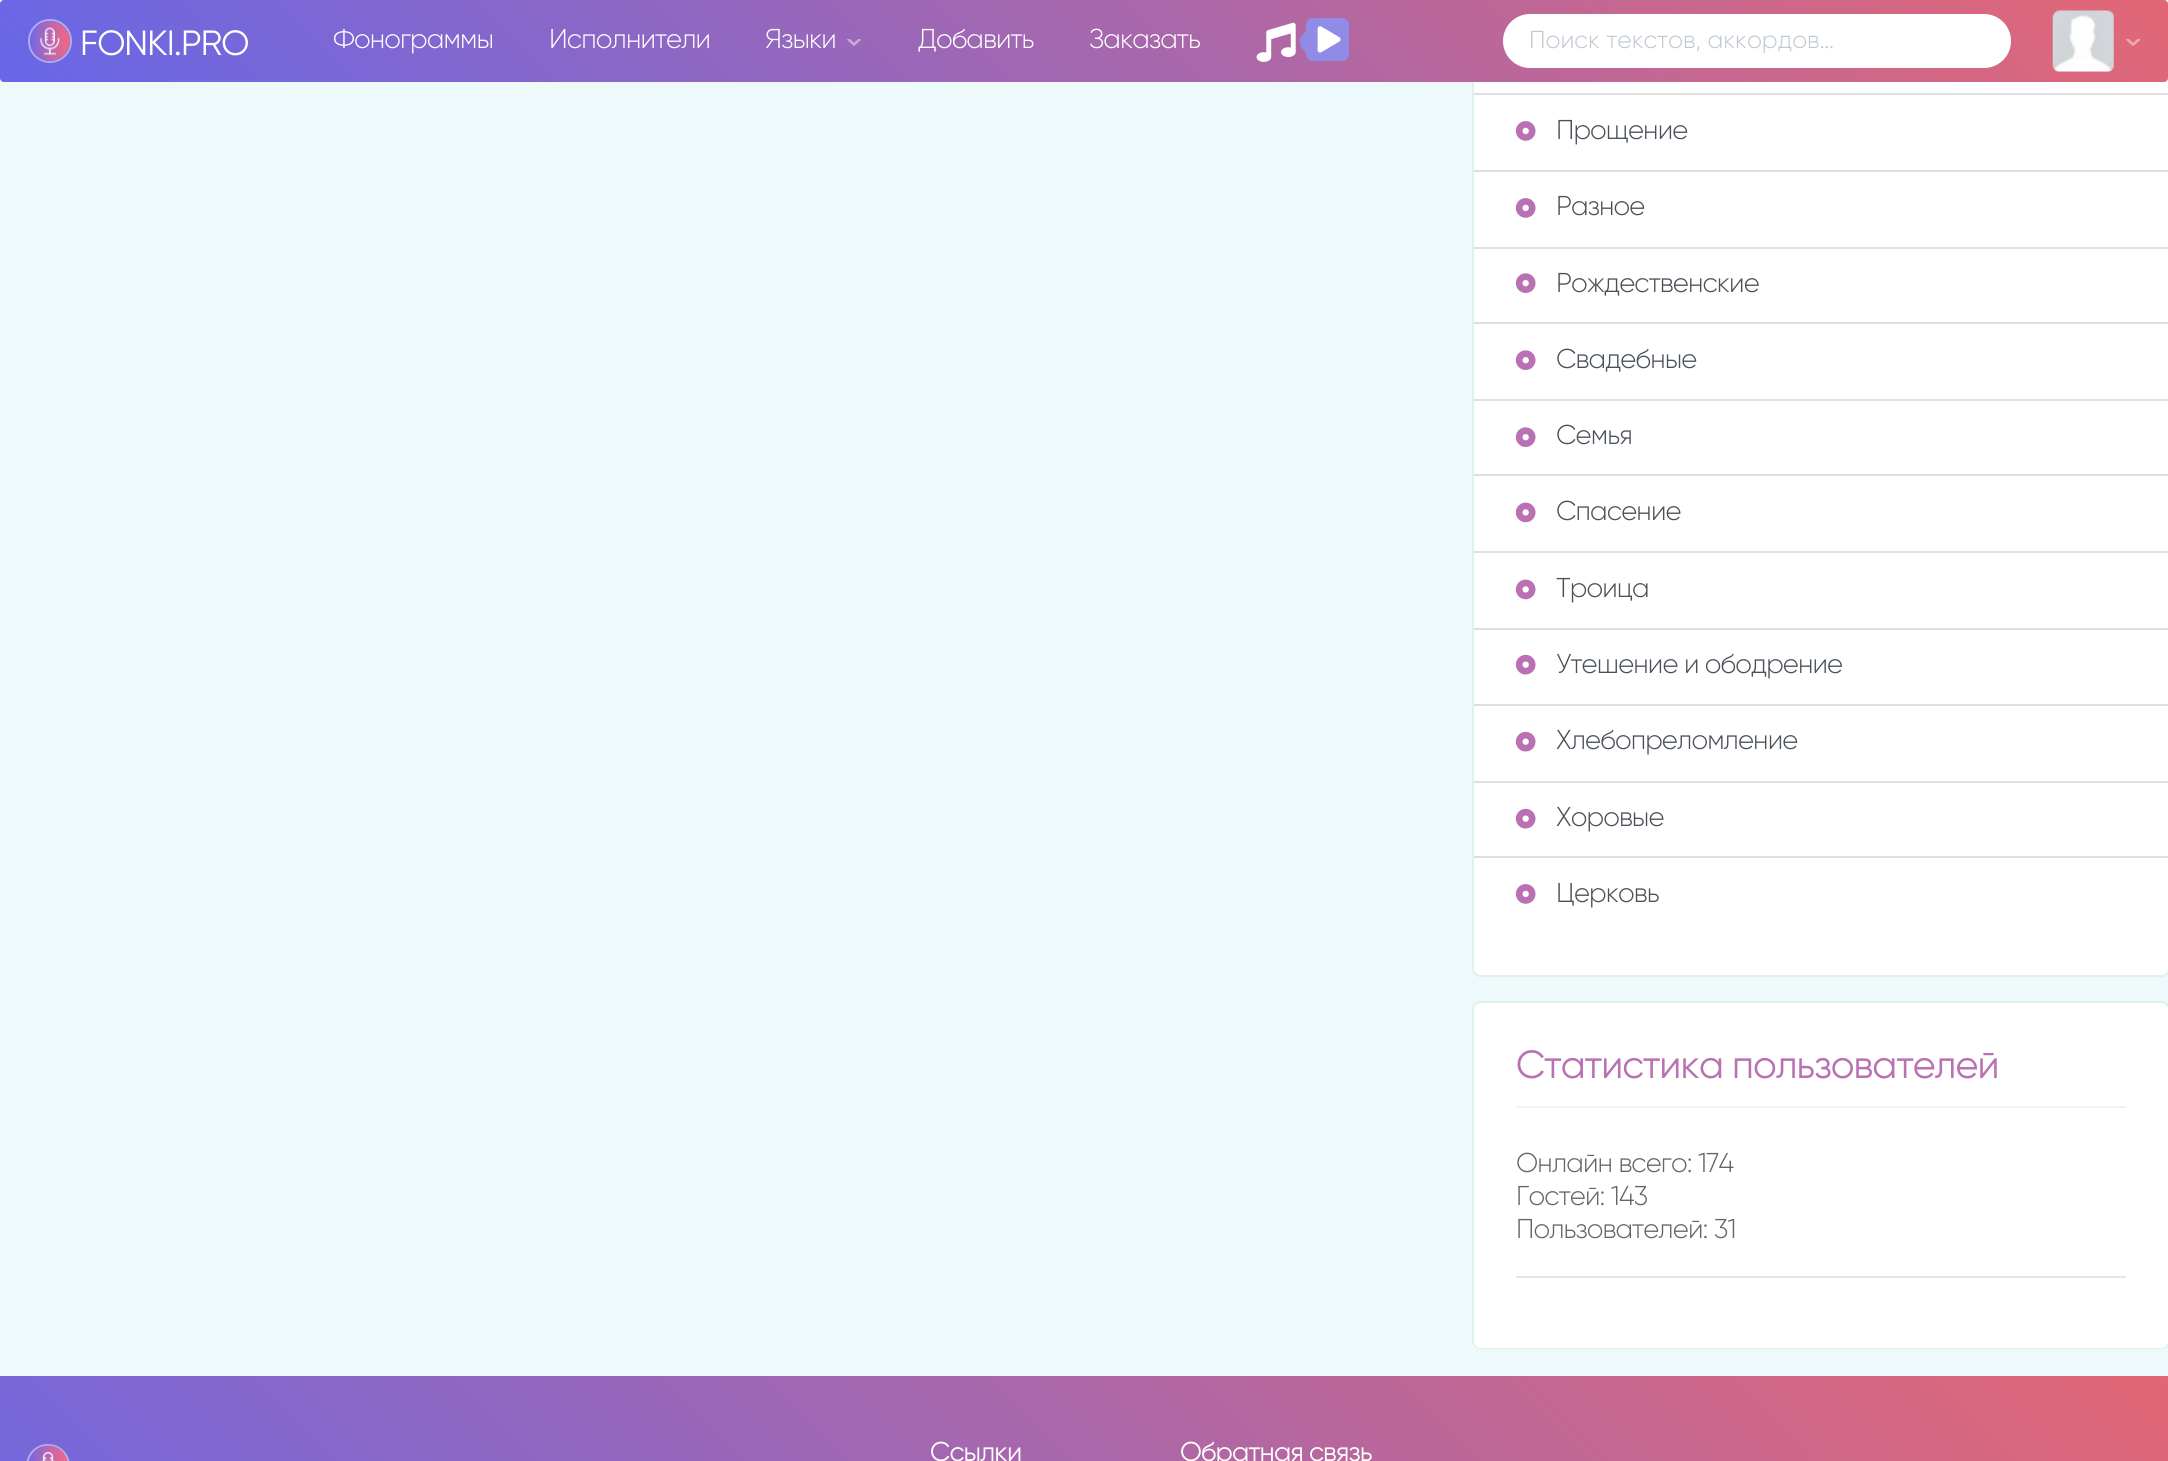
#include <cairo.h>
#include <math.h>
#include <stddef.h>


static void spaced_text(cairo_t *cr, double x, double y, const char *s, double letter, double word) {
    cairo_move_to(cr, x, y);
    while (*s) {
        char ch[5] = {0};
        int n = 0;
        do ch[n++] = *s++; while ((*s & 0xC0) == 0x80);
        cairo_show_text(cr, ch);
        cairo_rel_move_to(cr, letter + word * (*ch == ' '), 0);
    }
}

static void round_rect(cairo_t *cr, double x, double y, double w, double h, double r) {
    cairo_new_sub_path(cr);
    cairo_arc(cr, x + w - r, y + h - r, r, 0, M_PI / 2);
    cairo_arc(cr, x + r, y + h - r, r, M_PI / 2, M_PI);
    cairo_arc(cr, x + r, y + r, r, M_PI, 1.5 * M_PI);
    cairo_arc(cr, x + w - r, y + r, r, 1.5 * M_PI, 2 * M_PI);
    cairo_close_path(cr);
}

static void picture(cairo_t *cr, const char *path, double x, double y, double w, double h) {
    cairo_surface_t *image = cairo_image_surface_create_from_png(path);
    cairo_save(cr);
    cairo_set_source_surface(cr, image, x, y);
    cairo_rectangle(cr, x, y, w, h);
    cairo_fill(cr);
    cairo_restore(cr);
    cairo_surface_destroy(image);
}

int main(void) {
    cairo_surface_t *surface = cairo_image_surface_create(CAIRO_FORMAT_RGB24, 2168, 1461);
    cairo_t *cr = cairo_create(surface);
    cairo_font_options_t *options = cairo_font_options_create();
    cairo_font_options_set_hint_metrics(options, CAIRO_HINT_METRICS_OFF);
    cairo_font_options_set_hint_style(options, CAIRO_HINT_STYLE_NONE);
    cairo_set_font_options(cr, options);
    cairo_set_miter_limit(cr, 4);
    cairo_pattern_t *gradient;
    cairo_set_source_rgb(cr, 0.929, 0.973, 0.98);
    cairo_paint(cr);
    round_rect(cr, 1473, -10, 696, 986, 8);
    cairo_set_source_rgb(cr, 0.875, 0.945, 0.914);
    cairo_stroke(cr);
    cairo_new_path(cr);
    cairo_move_to(cr, 1474, 970);
    cairo_curve_to(cr, 1474, 974, 1477, 977, 1481, 977);
    cairo_line_to(cr, 2161, 977);
    cairo_curve_to(cr, 2165, 977, 2168, 974, 2168, 970);
    cairo_curve_to(cr, 2167, 973, 2164, 975, 2161, 975);
    cairo_line_to(cr, 1480, 975);
    cairo_curve_to(cr, 1478, 975, 1475, 973, 1474, 970);
    cairo_close_path(cr);
    cairo_fill(cr);
    cairo_set_source_rgb(cr, 1, 1, 1);
    round_rect(cr, 1474, -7, 694, 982, 7);
    cairo_fill(cr);
    gradient = cairo_pattern_create_linear(522, 604, 1647, -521);
    cairo_pattern_add_color_stop_rgba(gradient, 0, 0.404, 0.404, 0.91, 1);
    cairo_pattern_add_color_stop_rgba(gradient, 1, 0.89, 0.404, 0.459, 1);
    cairo_set_source(cr, gradient);
    cairo_pattern_destroy(gradient);
    round_rect(cr, 0, 0, 2168, 82, 4);
    cairo_fill(cr);
    cairo_arc(cr, 50, 41, 21, 0, 2 * M_PI);
    cairo_set_source_rgba(cr, 1, 1, 1, 0.46);
    cairo_stroke(cr);
    picture(cr, "img1.png", 30, 21, 40, 41);
    cairo_select_font_face(cr, "Gilroy", CAIRO_FONT_SLANT_NORMAL, CAIRO_FONT_WEIGHT_NORMAL);
    cairo_set_font_size(cr, 35);
    cairo_set_source_rgb(cr, 1, 1, 1);
    spaced_text(cr, 80, 55, "FONKI.PRO", -0.9, 0);
    cairo_select_font_face(cr, "Gilroy Light", CAIRO_FONT_SLANT_NORMAL, CAIRO_FONT_WEIGHT_NORMAL);
    cairo_set_font_size(cr, 27.25);
    spaced_text(cr, 333, 48, "Фонограммы", -0.9, 0);
    spaced_text(cr, 549, 48, "Исполнители", -0.9, 0);
    spaced_text(cr, 765, 48, "Языки", -0.9, 0);
    cairo_save(cr);
    cairo_rectangle(cr, 847, 39, 14, 7);
    cairo_clip(cr);
    cairo_new_path(cr);
    cairo_move_to(cr, 848.5, 39.5);
    cairo_line_to(cr, 854, 44.5);
    cairo_line_to(cr, 859.5, 39.5);
    cairo_set_source_rgb(cr, 0.776, 0.671, 0.851);
    cairo_set_line_width(cr, 2.6);
    cairo_set_line_cap(cr, CAIRO_LINE_CAP_ROUND);
    cairo_set_line_join(cr, CAIRO_LINE_JOIN_ROUND);
    cairo_stroke(cr);
    cairo_restore(cr);
    spaced_text(cr, 918, 48, "Добавить", -0.9, 0);
    spaced_text(cr, 1089, 48, "Заказать", -0.9, 0);
    picture(cr, "img2.png", 1256, 22, 40, 40);
    cairo_set_source_rgb(cr, 0.569, 0.545, 0.91);
    round_rect(cr, 1306, 18, 43, 43, 7);
    cairo_fill(cr);
    cairo_new_path(cr);
    cairo_move_to(cr, 1307.5, 53);
    cairo_line_to(cr, 1307, 53.5);
    cairo_line_to(cr, 1300, 46);
    cairo_line_to(cr, 1300, 38);
    cairo_line_to(cr, 1306.5, 30);
    cairo_curve_to(cr, 1307.5, 31.5, 1307.5, 50, 1307.5, 53);
    cairo_close_path(cr);
    cairo_fill(cr);
    picture(cr, "img3.png", 1317, 26, 24, 27);
    cairo_set_source_rgb(cr, 1, 1, 1);
    round_rect(cr, 1503, 14, 508, 54, 27);
    cairo_fill(cr);
    cairo_set_font_size(cr, 24.5);
    cairo_set_source_rgb(cr, 0.753, 0.784, 0.816);
    cairo_move_to(cr, 1529, 48);
    cairo_show_text(cr, "Поиск текстов, аккордов…");
    picture(cr, "img4.png", 2052, 10, 62, 62);
    cairo_save(cr);
    cairo_rectangle(cr, 2126, 39, 14, 7);
    cairo_clip(cr);
    cairo_new_path(cr);
    cairo_move_to(cr, 2127.5, 39.5);
    cairo_line_to(cr, 2133, 44.5);
    cairo_line_to(cr, 2139, 39.5);
    cairo_set_source_rgb(cr, 0.929, 0.671, 0.71);
    cairo_set_line_width(cr, 2.6);
    cairo_set_line_cap(cr, CAIRO_LINE_CAP_ROUND);
    cairo_set_line_join(cr, CAIRO_LINE_JOIN_ROUND);
    cairo_stroke(cr);
    cairo_restore(cr);
    cairo_set_source_rgb(cr, 0.875, 0.875, 0.875);
    cairo_rectangle(cr, 1474, 93, 694, 2);
    cairo_fill(cr);
    picture(cr, "img5.png", 1515, 121, 21, 20);
    cairo_set_font_size(cr, 27.25);
    cairo_set_source_rgb(cr, 0.286, 0.314, 0.341);
    spaced_text(cr, 1556, 139, "Прощение", -0.9, 0);
    cairo_set_source_rgb(cr, 0.875, 0.875, 0.875);
    cairo_rectangle(cr, 1474, 170, 694, 2);
    cairo_fill(cr);
    picture(cr, "img5.png", 1515, 198, 21, 20);
    cairo_set_source_rgb(cr, 0.286, 0.314, 0.341);
    spaced_text(cr, 1556, 215, "Разное", -0.9, 0);
    cairo_set_source_rgb(cr, 0.875, 0.875, 0.875);
    cairo_rectangle(cr, 1474, 247, 694, 2);
    cairo_fill(cr);
    picture(cr, "img6.png", 1515, 273, 21, 20);
    cairo_set_source_rgb(cr, 0.286, 0.314, 0.341);
    spaced_text(cr, 1556, 292, "Рождественские", -0.9, 0);
    cairo_set_source_rgb(cr, 0.875, 0.875, 0.875);
    cairo_rectangle(cr, 1474, 322, 694, 2);
    cairo_fill(cr);
    picture(cr, "img6.png", 1515, 350, 21, 20);
    cairo_set_source_rgb(cr, 0.286, 0.314, 0.341);
    spaced_text(cr, 1556, 368, "Свадебные", -0.9, 0);
    cairo_set_source_rgb(cr, 0.875, 0.875, 0.875);
    cairo_rectangle(cr, 1474, 399, 694, 2);
    cairo_fill(cr);
    picture(cr, "img6.png", 1515, 427, 21, 20);
    cairo_set_source_rgb(cr, 0.286, 0.314, 0.341);
    spaced_text(cr, 1556, 444, "Семья", -0.9, 0);
    cairo_set_source_rgb(cr, 0.875, 0.875, 0.875);
    cairo_rectangle(cr, 1474, 474, 694, 2);
    cairo_fill(cr);
    picture(cr, "img7.png", 1515, 502, 21, 21);
    cairo_set_source_rgb(cr, 0.286, 0.314, 0.341);
    spaced_text(cr, 1556, 520, "Спасение", -0.9, 0);
    cairo_set_source_rgb(cr, 0.875, 0.875, 0.875);
    cairo_rectangle(cr, 1474, 551, 694, 2);
    cairo_fill(cr);
    picture(cr, "img7.png", 1515, 579, 21, 21);
    cairo_set_source_rgb(cr, 0.286, 0.314, 0.341);
    spaced_text(cr, 1556, 597, "Троица", -0.9, 0);
    cairo_set_source_rgb(cr, 0.875, 0.875, 0.875);
    cairo_rectangle(cr, 1474, 628, 694, 2);
    cairo_fill(cr);
    picture(cr, "img8.png", 1515, 654, 21, 21);
    cairo_set_source_rgb(cr, 0.286, 0.314, 0.341);
    spaced_text(cr, 1556, 673, "Утешение и ободрение", -0.9, 0);
    cairo_set_source_rgb(cr, 0.875, 0.875, 0.875);
    cairo_rectangle(cr, 1474, 704, 694, 2);
    cairo_fill(cr);
    picture(cr, "img8.png", 1515, 731, 21, 21);
    cairo_set_source_rgb(cr, 0.286, 0.314, 0.341);
    spaced_text(cr, 1556, 749, "Хлебопреломление", -0.9, 0);
    cairo_set_source_rgb(cr, 0.875, 0.875, 0.875);
    cairo_rectangle(cr, 1474, 781, 694, 2);
    cairo_fill(cr);
    picture(cr, "img8.png", 1515, 808, 21, 21);
    cairo_set_source_rgb(cr, 0.286, 0.314, 0.341);
    spaced_text(cr, 1556, 826, "Хоровые", -0.9, 0);
    cairo_set_source_rgb(cr, 0.875, 0.875, 0.875);
    cairo_rectangle(cr, 1474, 856, 694, 2);
    cairo_fill(cr);
    picture(cr, "img5.png", 1515, 884, 21, 20);
    cairo_set_source_rgb(cr, 0.286, 0.314, 0.341);
    spaced_text(cr, 1556, 902, "Церковь", -0.9, 0);
    round_rect(cr, 1473, 1002, 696, 346, 8);
    cairo_set_source_rgb(cr, 0.875, 0.945, 0.914);
    cairo_stroke(cr);
    cairo_new_path(cr);
    cairo_move_to(cr, 1474, 1343);
    cairo_curve_to(cr, 1475, 1347, 1478, 1349, 1481, 1349);
    cairo_line_to(cr, 2161, 1349);
    cairo_curve_to(cr, 2165, 1349, 2168, 1346, 2168, 1342);
    cairo_curve_to(cr, 2167, 1345, 2164, 1348, 2161, 1348);
    cairo_line_to(cr, 1480, 1348);
    cairo_curve_to(cr, 1478, 1348, 1475, 1346, 1474, 1343);
    cairo_close_path(cr);
    cairo_fill(cr);
    cairo_set_source_rgb(cr, 1, 1, 1);
    round_rect(cr, 1474, 1003, 694, 345, 7);
    cairo_fill(cr);
    cairo_set_source_rgb(cr, 0.949, 0.949, 0.949);
    cairo_rectangle(cr, 1516, 1106, 610, 2);
    cairo_fill(cr);
    cairo_select_font_face(cr, "Gilroy", CAIRO_FONT_SLANT_NORMAL, CAIRO_FONT_WEIGHT_NORMAL);
    cairo_set_font_size(cr, 39.25);
    cairo_set_source_rgb(cr, 0.725, 0.443, 0.702);
    spaced_text(cr, 1516, 1078, "Статистика пользователей", -0.9, 0);
    cairo_select_font_face(cr, "Gilroy Light", CAIRO_FONT_SLANT_NORMAL, CAIRO_FONT_WEIGHT_NORMAL);
    cairo_set_font_size(cr, 27.25);
    cairo_set_source_rgb(cr, 0.396, 0.396, 0.396);
    spaced_text(cr, 1516, 1172, "Онлайн всего: 174", -0.9, 0);
    spaced_text(cr, 1516, 1205, "Гостей: 143", -0.9, 0);
    spaced_text(cr, 1516, 1238, "Пользователей: 31", -0.9, 0);
    cairo_set_source_rgb(cr, 0.902, 0.902, 0.902);
    cairo_rectangle(cr, 1516, 1276, 610, 2);
    cairo_fill(cr);
    gradient = cairo_pattern_create_linear(448, 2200, 1720, 928);
    cairo_pattern_add_color_stop_rgba(gradient, 0, 0.404, 0.404, 0.91, 1);
    cairo_pattern_add_color_stop_rgba(gradient, 1, 0.89, 0.404, 0.459, 1);
    cairo_set_source(cr, gradient);
    cairo_pattern_destroy(gradient);
    cairo_rectangle(cr, 0, 1376, 2168, 85);
    cairo_fill(cr);
    round_rect(cr, 27, 1445, 42, 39, 21);
    cairo_set_source_rgb(cr, 0.714, 0.678, 0.918);
    cairo_stroke(cr);
    picture(cr, "img9.png", 28, 1445, 40, 16);
    cairo_select_font_face(cr, "Gilroy", CAIRO_FONT_SLANT_NORMAL, CAIRO_FONT_WEIGHT_NORMAL);
    cairo_set_source_rgb(cr, 1, 1, 1);
    spaced_text(cr, 930, 1461, "Ссылки", -0.9, 0);
    spaced_text(cr, 1180, 1461, "Обратная связь", -0.9, 0);
    cairo_surface_write_to_png(surface, "page.png");
    cairo_font_options_destroy(options);
    cairo_destroy(cr);
    cairo_surface_destroy(surface);
    return 0;
}
